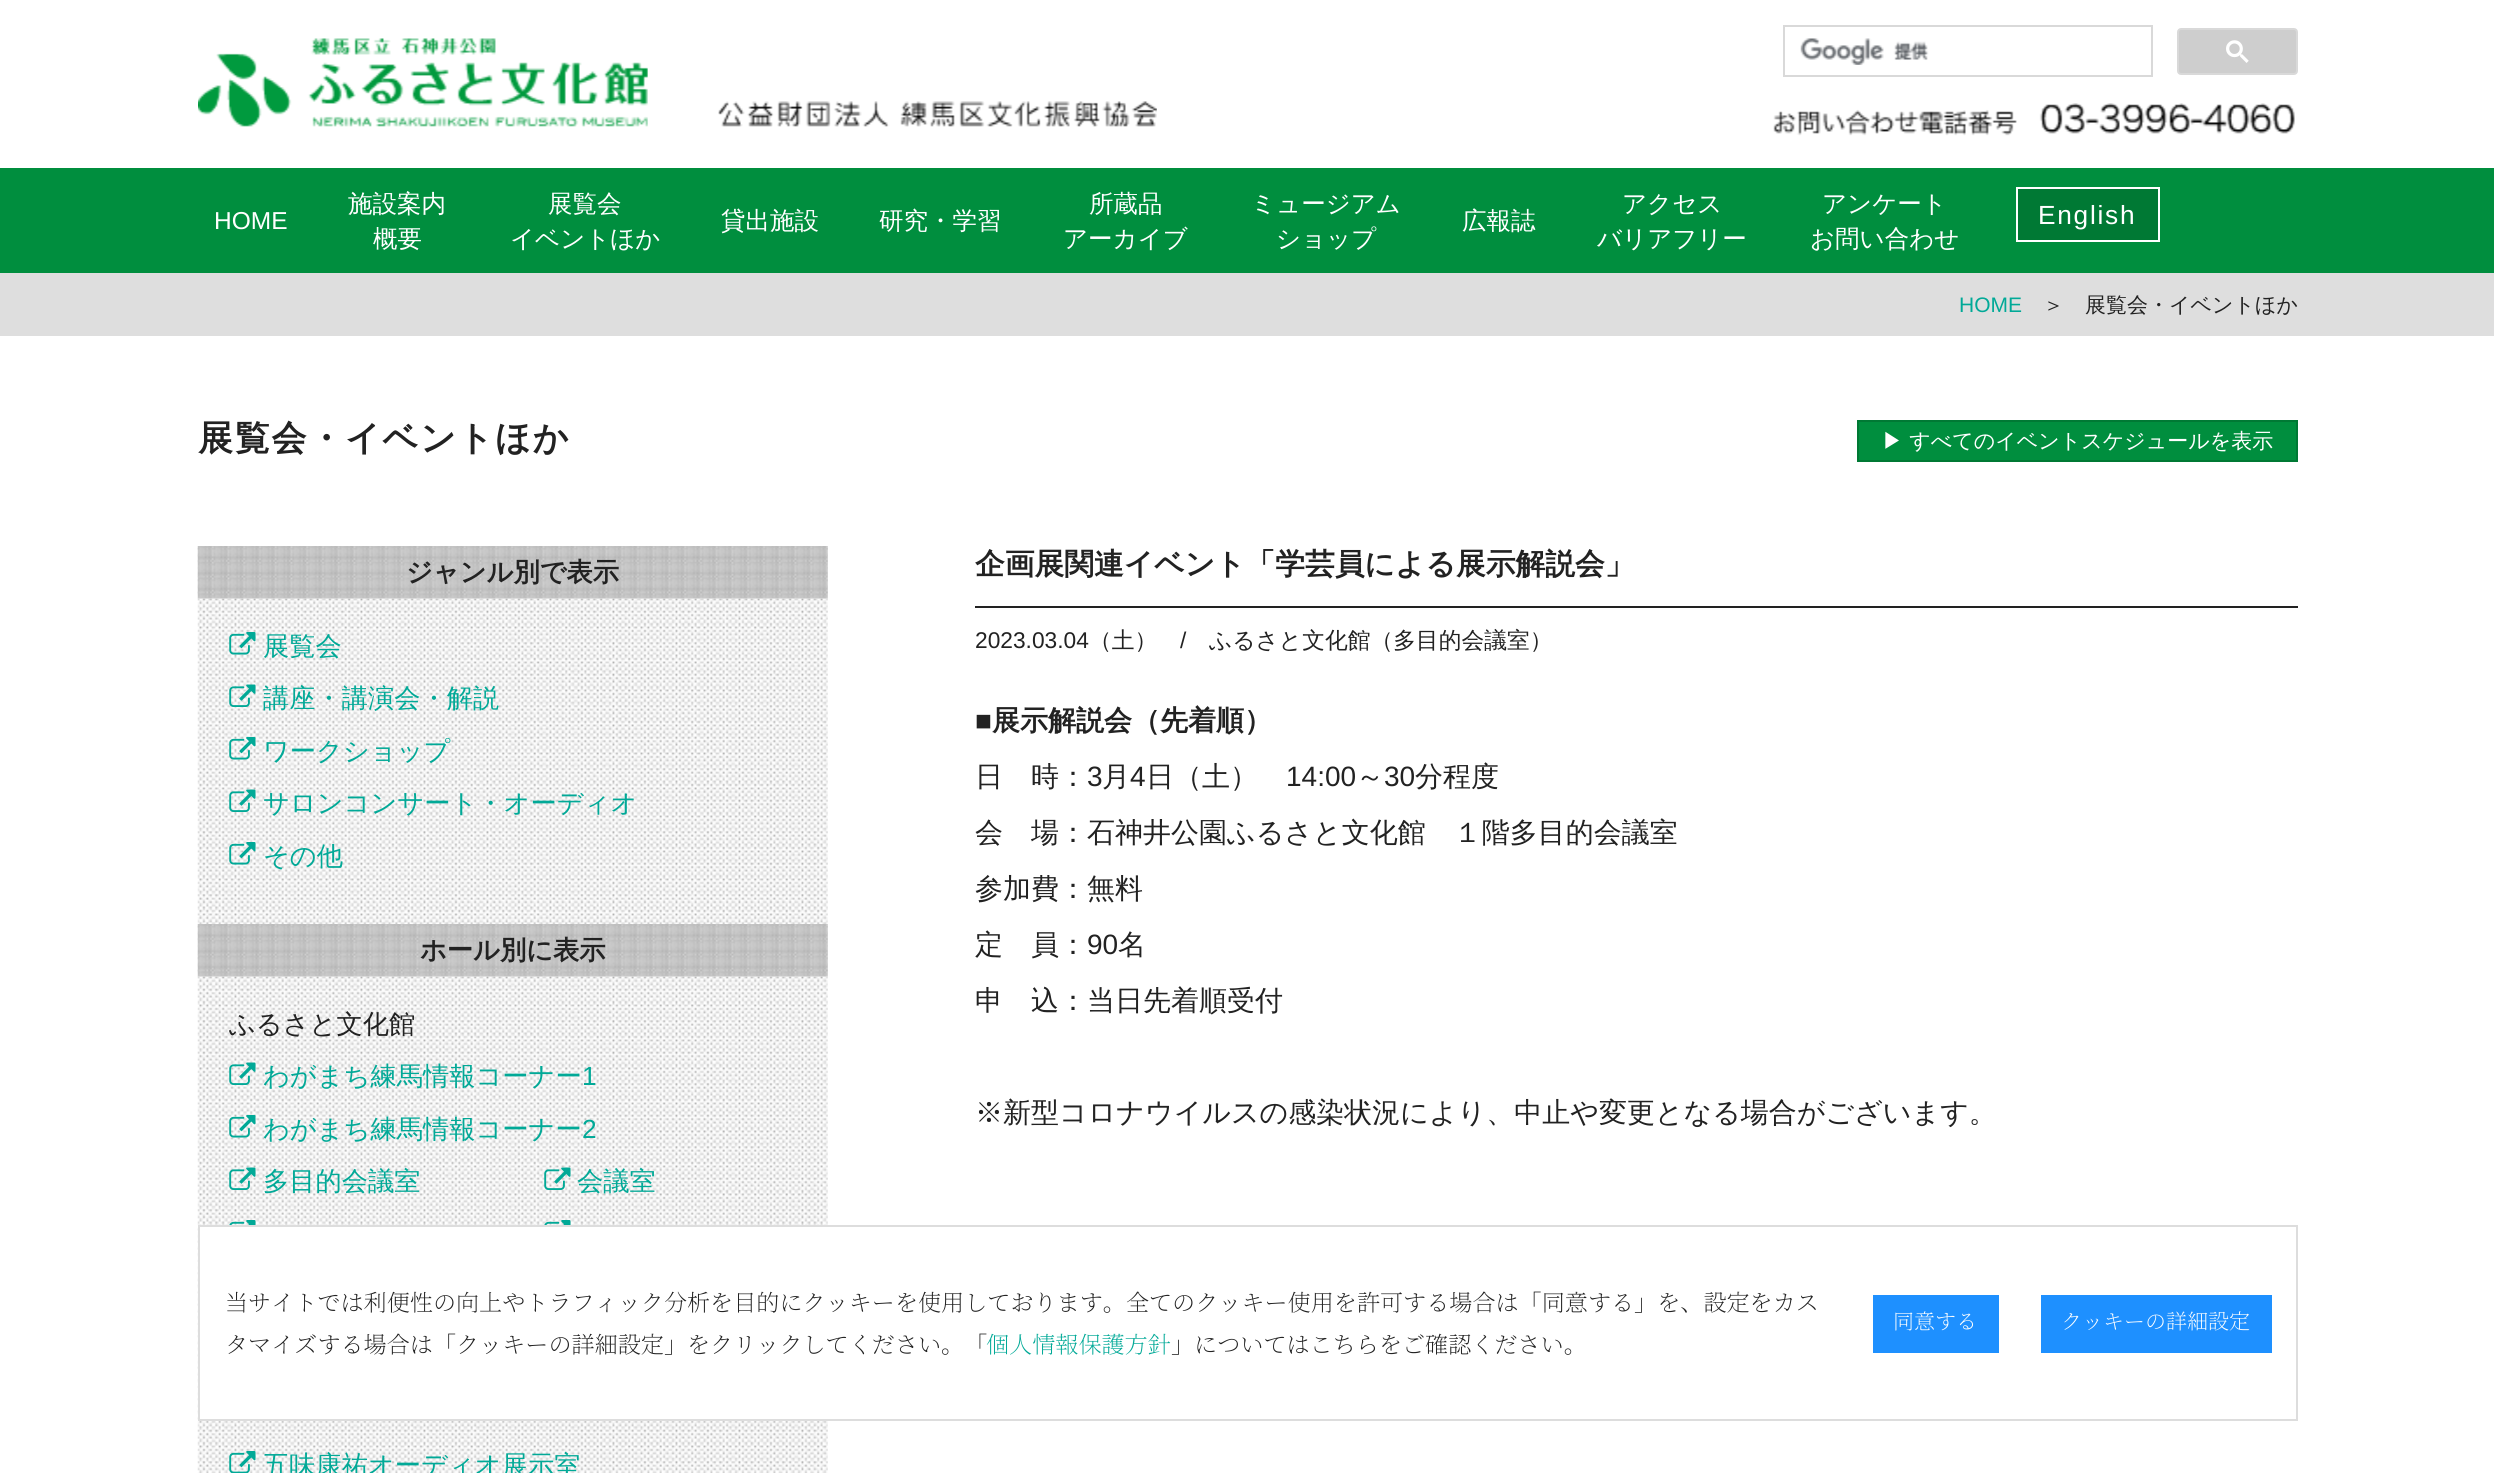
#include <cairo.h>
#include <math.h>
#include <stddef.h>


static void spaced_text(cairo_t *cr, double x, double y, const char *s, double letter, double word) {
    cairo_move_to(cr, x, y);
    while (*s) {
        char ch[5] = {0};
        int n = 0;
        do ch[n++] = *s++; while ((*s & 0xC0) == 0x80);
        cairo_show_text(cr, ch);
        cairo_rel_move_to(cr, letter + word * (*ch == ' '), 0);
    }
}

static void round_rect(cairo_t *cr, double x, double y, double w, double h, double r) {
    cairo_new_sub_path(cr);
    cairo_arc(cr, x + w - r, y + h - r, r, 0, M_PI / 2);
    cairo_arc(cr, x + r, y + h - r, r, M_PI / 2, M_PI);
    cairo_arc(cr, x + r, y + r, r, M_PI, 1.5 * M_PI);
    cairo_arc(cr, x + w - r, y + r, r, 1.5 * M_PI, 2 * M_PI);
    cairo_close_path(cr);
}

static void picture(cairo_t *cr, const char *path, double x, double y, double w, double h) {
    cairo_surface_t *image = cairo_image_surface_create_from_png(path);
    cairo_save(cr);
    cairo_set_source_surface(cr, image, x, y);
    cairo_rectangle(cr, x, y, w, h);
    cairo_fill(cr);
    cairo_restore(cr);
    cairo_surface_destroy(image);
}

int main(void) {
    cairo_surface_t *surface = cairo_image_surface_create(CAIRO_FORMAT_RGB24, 2494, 1473);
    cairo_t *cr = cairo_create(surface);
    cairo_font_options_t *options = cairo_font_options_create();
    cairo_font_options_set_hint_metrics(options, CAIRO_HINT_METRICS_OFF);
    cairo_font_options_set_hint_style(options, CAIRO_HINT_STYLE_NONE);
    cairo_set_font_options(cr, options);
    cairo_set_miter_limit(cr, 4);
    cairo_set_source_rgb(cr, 1, 1, 1);
    cairo_paint(cr);
    picture(cr, "img1.png", 198, 38, 450, 89);
    picture(cr, "img2.png", 718, 101, 439, 26);
    cairo_rectangle(cr, 1784, 26, 368, 50);
    cairo_set_source_rgb(cr, 0.851, 0.851, 0.851);
    cairo_stroke(cr);
    picture(cr, "img3.png", 1800, 38, 129, 27);
    cairo_set_source_rgb(cr, 0.808, 0.808, 0.808);
    round_rect(cr, 2178, 29, 119, 45, 3);
    cairo_fill_preserve(cr);
    cairo_set_source_rgb(cr, 0.851, 0.851, 0.851);
    cairo_stroke(cr);
    picture(cr, "img4.png", 2226, 40, 23, 23);
    picture(cr, "img5.png", 1773, 103, 522, 33);
    cairo_set_source_rgb(cr, 0, 0.557, 0.243);
    cairo_rectangle(cr, 0, 168, 2494, 105);
    cairo_fill(cr);
    cairo_select_font_face(cr, "Liberation Sans", CAIRO_FONT_SLANT_NORMAL, CAIRO_FONT_WEIGHT_NORMAL);
    cairo_set_font_size(cr, 24.5);
    cairo_set_source_rgb(cr, 1, 1, 1);
    cairo_move_to(cr, 214, 229);
    cairo_show_text(cr, "HOME");
    cairo_select_font_face(cr, "WenQuanYi Zen Hei Medium", CAIRO_FONT_SLANT_NORMAL, CAIRO_FONT_WEIGHT_NORMAL);
    cairo_move_to(cr, 348, 212);
    cairo_show_text(cr, "施設案内");
    cairo_move_to(cr, 373, 247);
    cairo_show_text(cr, "概要");
    cairo_move_to(cr, 548, 212);
    cairo_show_text(cr, "展覧会");
    cairo_move_to(cr, 510, 247);
    cairo_show_text(cr, "イベントほか");
    cairo_move_to(cr, 721, 229);
    cairo_show_text(cr, "貸出施設");
    cairo_move_to(cr, 879, 229);
    cairo_show_text(cr, "研究・学習");
    cairo_move_to(cr, 1089, 212);
    cairo_show_text(cr, "所蔵品");
    cairo_move_to(cr, 1063, 247);
    cairo_show_text(cr, "アーカイブ");
    cairo_move_to(cr, 1251, 212);
    cairo_show_text(cr, "ミュージアム");
    cairo_move_to(cr, 1276, 247);
    cairo_show_text(cr, "ショップ");
    cairo_move_to(cr, 1462, 229);
    cairo_show_text(cr, "広報誌");
    cairo_move_to(cr, 1622, 212);
    cairo_show_text(cr, "アクセス");
    cairo_move_to(cr, 1597, 247);
    cairo_show_text(cr, "バリアフリー");
    cairo_move_to(cr, 1822, 212);
    cairo_show_text(cr, "アンケート");
    cairo_move_to(cr, 1810, 247);
    cairo_show_text(cr, "お問い合わせ");
    cairo_set_source_rgb(cr, 0, 0.475, 0.204);
    cairo_rectangle(cr, 2017, 188, 142, 53);
    cairo_fill_preserve(cr);
    cairo_set_source_rgb(cr, 1, 1, 1);
    cairo_stroke(cr);
    cairo_select_font_face(cr, "Liberation Sans", CAIRO_FONT_SLANT_NORMAL, CAIRO_FONT_WEIGHT_NORMAL);
    cairo_set_font_size(cr, 26.25);
    spaced_text(cr, 2038, 224, "English", 1.75, 0);
    cairo_set_source_rgb(cr, 0.871, 0.871, 0.871);
    cairo_rectangle(cr, 0, 273, 2494, 63);
    cairo_fill(cr);
    cairo_set_font_size(cr, 21);
    cairo_set_source_rgb(cr, 0.004, 0.663, 0.592);
    cairo_move_to(cr, 1959, 312);
    cairo_show_text(cr, "HOME");
    cairo_select_font_face(cr, "WenQuanYi Zen Hei Medium", CAIRO_FONT_SLANT_NORMAL, CAIRO_FONT_WEIGHT_NORMAL);
    cairo_set_source_rgb(cr, 0.133, 0.133, 0.133);
    cairo_move_to(cr, 2043, 312);
    cairo_show_text(cr, "＞　展覧会・イベントほか");
    cairo_select_font_face(cr, "WenQuanYi Zen Hei", CAIRO_FONT_SLANT_NORMAL, CAIRO_FONT_WEIGHT_BOLD);
    cairo_set_font_size(cr, 35);
    spaced_text(cr, 198, 450, "展覧会・イベントほか", 1.75, 0);
    cairo_set_source_rgb(cr, 0, 0.557, 0.243);
    cairo_rectangle(cr, 1858, 421, 439, 40);
    cairo_fill_preserve(cr);
    cairo_set_source_rgb(cr, 0, 0.475, 0.204);
    cairo_stroke(cr);
    cairo_select_font_face(cr, "WenQuanYi Zen Hei Medium", CAIRO_FONT_SLANT_NORMAL, CAIRO_FONT_WEIGHT_NORMAL);
    cairo_set_font_size(cr, 21);
    cairo_set_source_rgb(cr, 1, 1, 1);
    cairo_move_to(cr, 1882, 448);
    cairo_show_text(cr, "▶ すべてのイベントスケジュールを表示");
    picture(cr, "img6.png", 197, 546, 631, 927);
    picture(cr, "img7.png", 197, 546, 631, 53);
    cairo_select_font_face(cr, "WenQuanYi Zen Hei", CAIRO_FONT_SLANT_NORMAL, CAIRO_FONT_WEIGHT_BOLD);
    cairo_set_font_size(cr, 26.25);
    cairo_set_source_rgb(cr, 0.133, 0.133, 0.133);
    cairo_move_to(cr, 406, 581);
    cairo_show_text(cr, "ジャンル別で表示");
    picture(cr, "img8.png", 229, 632, 27, 23);
    cairo_select_font_face(cr, "WenQuanYi Zen Hei Medium", CAIRO_FONT_SLANT_NORMAL, CAIRO_FONT_WEIGHT_NORMAL);
    cairo_set_source_rgb(cr, 0.004, 0.663, 0.592);
    cairo_move_to(cr, 263, 655);
    cairo_show_text(cr, "展覧会");
    picture(cr, "img9.png", 229, 684, 27, 23);
    cairo_move_to(cr, 263, 707);
    cairo_show_text(cr, "講座・講演会・解説");
    picture(cr, "img10.png", 229, 737, 27, 23);
    cairo_move_to(cr, 263, 760);
    cairo_show_text(cr, "ワークショップ");
    picture(cr, "img11.png", 229, 789, 27, 23);
    cairo_move_to(cr, 263, 812);
    cairo_show_text(cr, "サロンコンサート・オーディオ");
    picture(cr, "img12.png", 229, 842, 27, 23);
    cairo_move_to(cr, 263, 865);
    cairo_show_text(cr, "その他");
    picture(cr, "img7.png", 197, 924, 631, 53);
    cairo_select_font_face(cr, "WenQuanYi Zen Hei", CAIRO_FONT_SLANT_NORMAL, CAIRO_FONT_WEIGHT_BOLD);
    cairo_set_source_rgb(cr, 0.133, 0.133, 0.133);
    cairo_move_to(cr, 420, 959);
    cairo_show_text(cr, "ホール別に表示");
    cairo_select_font_face(cr, "WenQuanYi Zen Hei Medium", CAIRO_FONT_SLANT_NORMAL, CAIRO_FONT_WEIGHT_NORMAL);
    cairo_move_to(cr, 229, 1033);
    cairo_show_text(cr, "ふるさと文化館");
    picture(cr, "img13.png", 229, 1062, 27, 23);
    cairo_set_source_rgb(cr, 0.004, 0.663, 0.592);
    cairo_move_to(cr, 263, 1085);
    cairo_show_text(cr, "わがまち練馬情報コーナー");
    cairo_select_font_face(cr, "Liberation Sans", CAIRO_FONT_SLANT_NORMAL, CAIRO_FONT_WEIGHT_NORMAL);
    cairo_move_to(cr, 582, 1085);
    cairo_show_text(cr, "1");
    picture(cr, "img14.png", 229, 1115, 27, 23);
    cairo_select_font_face(cr, "WenQuanYi Zen Hei Medium", CAIRO_FONT_SLANT_NORMAL, CAIRO_FONT_WEIGHT_NORMAL);
    cairo_move_to(cr, 263, 1138);
    cairo_show_text(cr, "わがまち練馬情報コーナー");
    cairo_select_font_face(cr, "Liberation Sans", CAIRO_FONT_SLANT_NORMAL, CAIRO_FONT_WEIGHT_NORMAL);
    cairo_move_to(cr, 582, 1138);
    cairo_show_text(cr, "2");
    picture(cr, "img11.png", 229, 1167, 27, 23);
    cairo_select_font_face(cr, "WenQuanYi Zen Hei Medium", CAIRO_FONT_SLANT_NORMAL, CAIRO_FONT_WEIGHT_NORMAL);
    cairo_move_to(cr, 263, 1190);
    cairo_show_text(cr, "多目的会議室");
    picture(cr, "img11.png", 544, 1167, 27, 23);
    cairo_move_to(cr, 577, 1190);
    cairo_show_text(cr, "会議室");
    picture(cr, "img15.png", 229, 1220, 27, 5);
    picture(cr, "img15.png", 544, 1220, 27, 5);
    picture(cr, "img16.png", 229, 1451, 27, 22);
    cairo_move_to(cr, 263, 1474);
    cairo_show_text(cr, "五味康祐オーディオ展示室");
    cairo_select_font_face(cr, "WenQuanYi Zen Hei", CAIRO_FONT_SLANT_NORMAL, CAIRO_FONT_WEIGHT_BOLD);
    cairo_set_font_size(cr, 29.75);
    cairo_set_source_rgb(cr, 0.133, 0.133, 0.133);
    cairo_move_to(cr, 975, 574);
    cairo_show_text(cr, "企画展関連イベント「学芸員による展示解説会」");
    cairo_rectangle(cr, 975, 606, 1323, 2);
    cairo_fill(cr);
    cairo_select_font_face(cr, "Liberation Sans", CAIRO_FONT_SLANT_NORMAL, CAIRO_FONT_WEIGHT_NORMAL);
    cairo_set_font_size(cr, 22.75);
    cairo_move_to(cr, 975, 648);
    cairo_show_text(cr, "2023.03.04");
    cairo_select_font_face(cr, "WenQuanYi Zen Hei Medium", CAIRO_FONT_SLANT_NORMAL, CAIRO_FONT_WEIGHT_NORMAL);
    cairo_move_to(cr, 1089, 648);
    cairo_show_text(cr, "（土）");
    cairo_select_font_face(cr, "Liberation Sans", CAIRO_FONT_SLANT_NORMAL, CAIRO_FONT_WEIGHT_NORMAL);
    cairo_move_to(cr, 1180, 648);
    cairo_show_text(cr, "/");
    cairo_select_font_face(cr, "WenQuanYi Zen Hei Medium", CAIRO_FONT_SLANT_NORMAL, CAIRO_FONT_WEIGHT_NORMAL);
    cairo_move_to(cr, 1209, 648);
    cairo_show_text(cr, "ふるさと文化館（多目的会議室）");
    cairo_select_font_face(cr, "Liberation Sans", CAIRO_FONT_SLANT_NORMAL, CAIRO_FONT_WEIGHT_BOLD);
    cairo_set_font_size(cr, 28);
    cairo_move_to(cr, 975, 730);
    cairo_show_text(cr, "■");
    cairo_select_font_face(cr, "WenQuanYi Zen Hei", CAIRO_FONT_SLANT_NORMAL, CAIRO_FONT_WEIGHT_BOLD);
    cairo_move_to(cr, 992, 730);
    cairo_show_text(cr, "展示解説会（先着順）");
    cairo_select_font_face(cr, "WenQuanYi Zen Hei Medium", CAIRO_FONT_SLANT_NORMAL, CAIRO_FONT_WEIGHT_NORMAL);
    cairo_move_to(cr, 975, 786);
    cairo_show_text(cr, "日　時：");
    cairo_select_font_face(cr, "Liberation Sans", CAIRO_FONT_SLANT_NORMAL, CAIRO_FONT_WEIGHT_NORMAL);
    cairo_move_to(cr, 1087, 786);
    cairo_show_text(cr, "3");
    cairo_select_font_face(cr, "WenQuanYi Zen Hei Medium", CAIRO_FONT_SLANT_NORMAL, CAIRO_FONT_WEIGHT_NORMAL);
    cairo_move_to(cr, 1102, 786);
    cairo_show_text(cr, "月");
    cairo_select_font_face(cr, "Liberation Sans", CAIRO_FONT_SLANT_NORMAL, CAIRO_FONT_WEIGHT_NORMAL);
    cairo_move_to(cr, 1130, 786);
    cairo_show_text(cr, "4");
    cairo_select_font_face(cr, "WenQuanYi Zen Hei Medium", CAIRO_FONT_SLANT_NORMAL, CAIRO_FONT_WEIGHT_NORMAL);
    cairo_move_to(cr, 1146, 786);
    cairo_show_text(cr, "日（土）");
    cairo_select_font_face(cr, "Liberation Sans", CAIRO_FONT_SLANT_NORMAL, CAIRO_FONT_WEIGHT_NORMAL);
    cairo_move_to(cr, 1286, 786);
    cairo_show_text(cr, "14:00");
    cairo_select_font_face(cr, "WenQuanYi Zen Hei Medium", CAIRO_FONT_SLANT_NORMAL, CAIRO_FONT_WEIGHT_NORMAL);
    cairo_move_to(cr, 1356, 786);
    cairo_show_text(cr, "～");
    cairo_select_font_face(cr, "Liberation Sans", CAIRO_FONT_SLANT_NORMAL, CAIRO_FONT_WEIGHT_NORMAL);
    cairo_move_to(cr, 1384, 786);
    cairo_show_text(cr, "30");
    cairo_select_font_face(cr, "WenQuanYi Zen Hei Medium", CAIRO_FONT_SLANT_NORMAL, CAIRO_FONT_WEIGHT_NORMAL);
    cairo_move_to(cr, 1415, 786);
    cairo_show_text(cr, "分程度");
    cairo_move_to(cr, 975, 842);
    cairo_show_text(cr, "会　場：石神井公園ふるさと文化館　１階多目的会議室");
    cairo_move_to(cr, 975, 898);
    cairo_show_text(cr, "参加費：無料");
    cairo_move_to(cr, 975, 954);
    cairo_show_text(cr, "定　員：");
    cairo_select_font_face(cr, "Liberation Sans", CAIRO_FONT_SLANT_NORMAL, CAIRO_FONT_WEIGHT_NORMAL);
    cairo_move_to(cr, 1087, 954);
    cairo_show_text(cr, "90");
    cairo_select_font_face(cr, "WenQuanYi Zen Hei Medium", CAIRO_FONT_SLANT_NORMAL, CAIRO_FONT_WEIGHT_NORMAL);
    cairo_move_to(cr, 1118, 954);
    cairo_show_text(cr, "名");
    cairo_move_to(cr, 975, 1010);
    cairo_show_text(cr, "申　込：当日先着順受付");
    cairo_move_to(cr, 975, 1122);
    cairo_show_text(cr, "※新型コロナウイルスの感染状況により、中止や変更となる場合がございます。");
    cairo_set_source_rgb(cr, 1, 1, 1);
    cairo_rectangle(cr, 200, 1227, 628, 192);
    cairo_fill(cr);
    cairo_rectangle(cr, 199, 1226, 2098, 194);
    cairo_set_source_rgb(cr, 0.867, 0.867, 0.867);
    cairo_stroke(cr);
    cairo_select_font_face(cr, "Noto Serif JP ExtraLight", CAIRO_FONT_SLANT_NORMAL, CAIRO_FONT_WEIGHT_NORMAL);
    cairo_set_font_size(cr, 23.1);
    cairo_set_source_rgb(cr, 0.133, 0.133, 0.133);
    cairo_move_to(cr, 225, 1311);
    cairo_show_text(cr, "当サイトでは利便性の向上やトラフィック分析を目的にクッキーを使用しております。全てのクッキー使用を許可する場合は「同意する」を、設定をカス");
    cairo_move_to(cr, 225, 1353);
    cairo_show_text(cr, "タマイズする場合は「クッキーの詳細設定」をクリックしてください。「");
    cairo_set_source_rgb(cr, 0.004, 0.663, 0.592);
    cairo_move_to(cr, 986, 1353);
    cairo_show_text(cr, "個人情報保護方針");
    cairo_set_source_rgb(cr, 0.133, 0.133, 0.133);
    cairo_move_to(cr, 1171, 1353);
    cairo_show_text(cr, "」についてはこちらをご確認ください。");
    cairo_set_source_rgb(cr, 0.118, 0.565, 1);
    cairo_rectangle(cr, 1873, 1295, 126, 58);
    cairo_fill(cr);
    cairo_set_font_size(cr, 21);
    cairo_set_source_rgb(cr, 1, 1, 1);
    cairo_move_to(cr, 1893, 1329);
    cairo_show_text(cr, "同意する");
    cairo_set_source_rgb(cr, 0.118, 0.565, 1);
    cairo_rectangle(cr, 2041, 1295, 231, 58);
    cairo_fill(cr);
    cairo_set_source_rgb(cr, 1, 1, 1);
    cairo_move_to(cr, 2061, 1329);
    cairo_show_text(cr, "クッキーの詳細設定");
    cairo_surface_write_to_png(surface, "page.png");
    cairo_font_options_destroy(options);
    cairo_destroy(cr);
    cairo_surface_destroy(surface);
    return 0;
}
